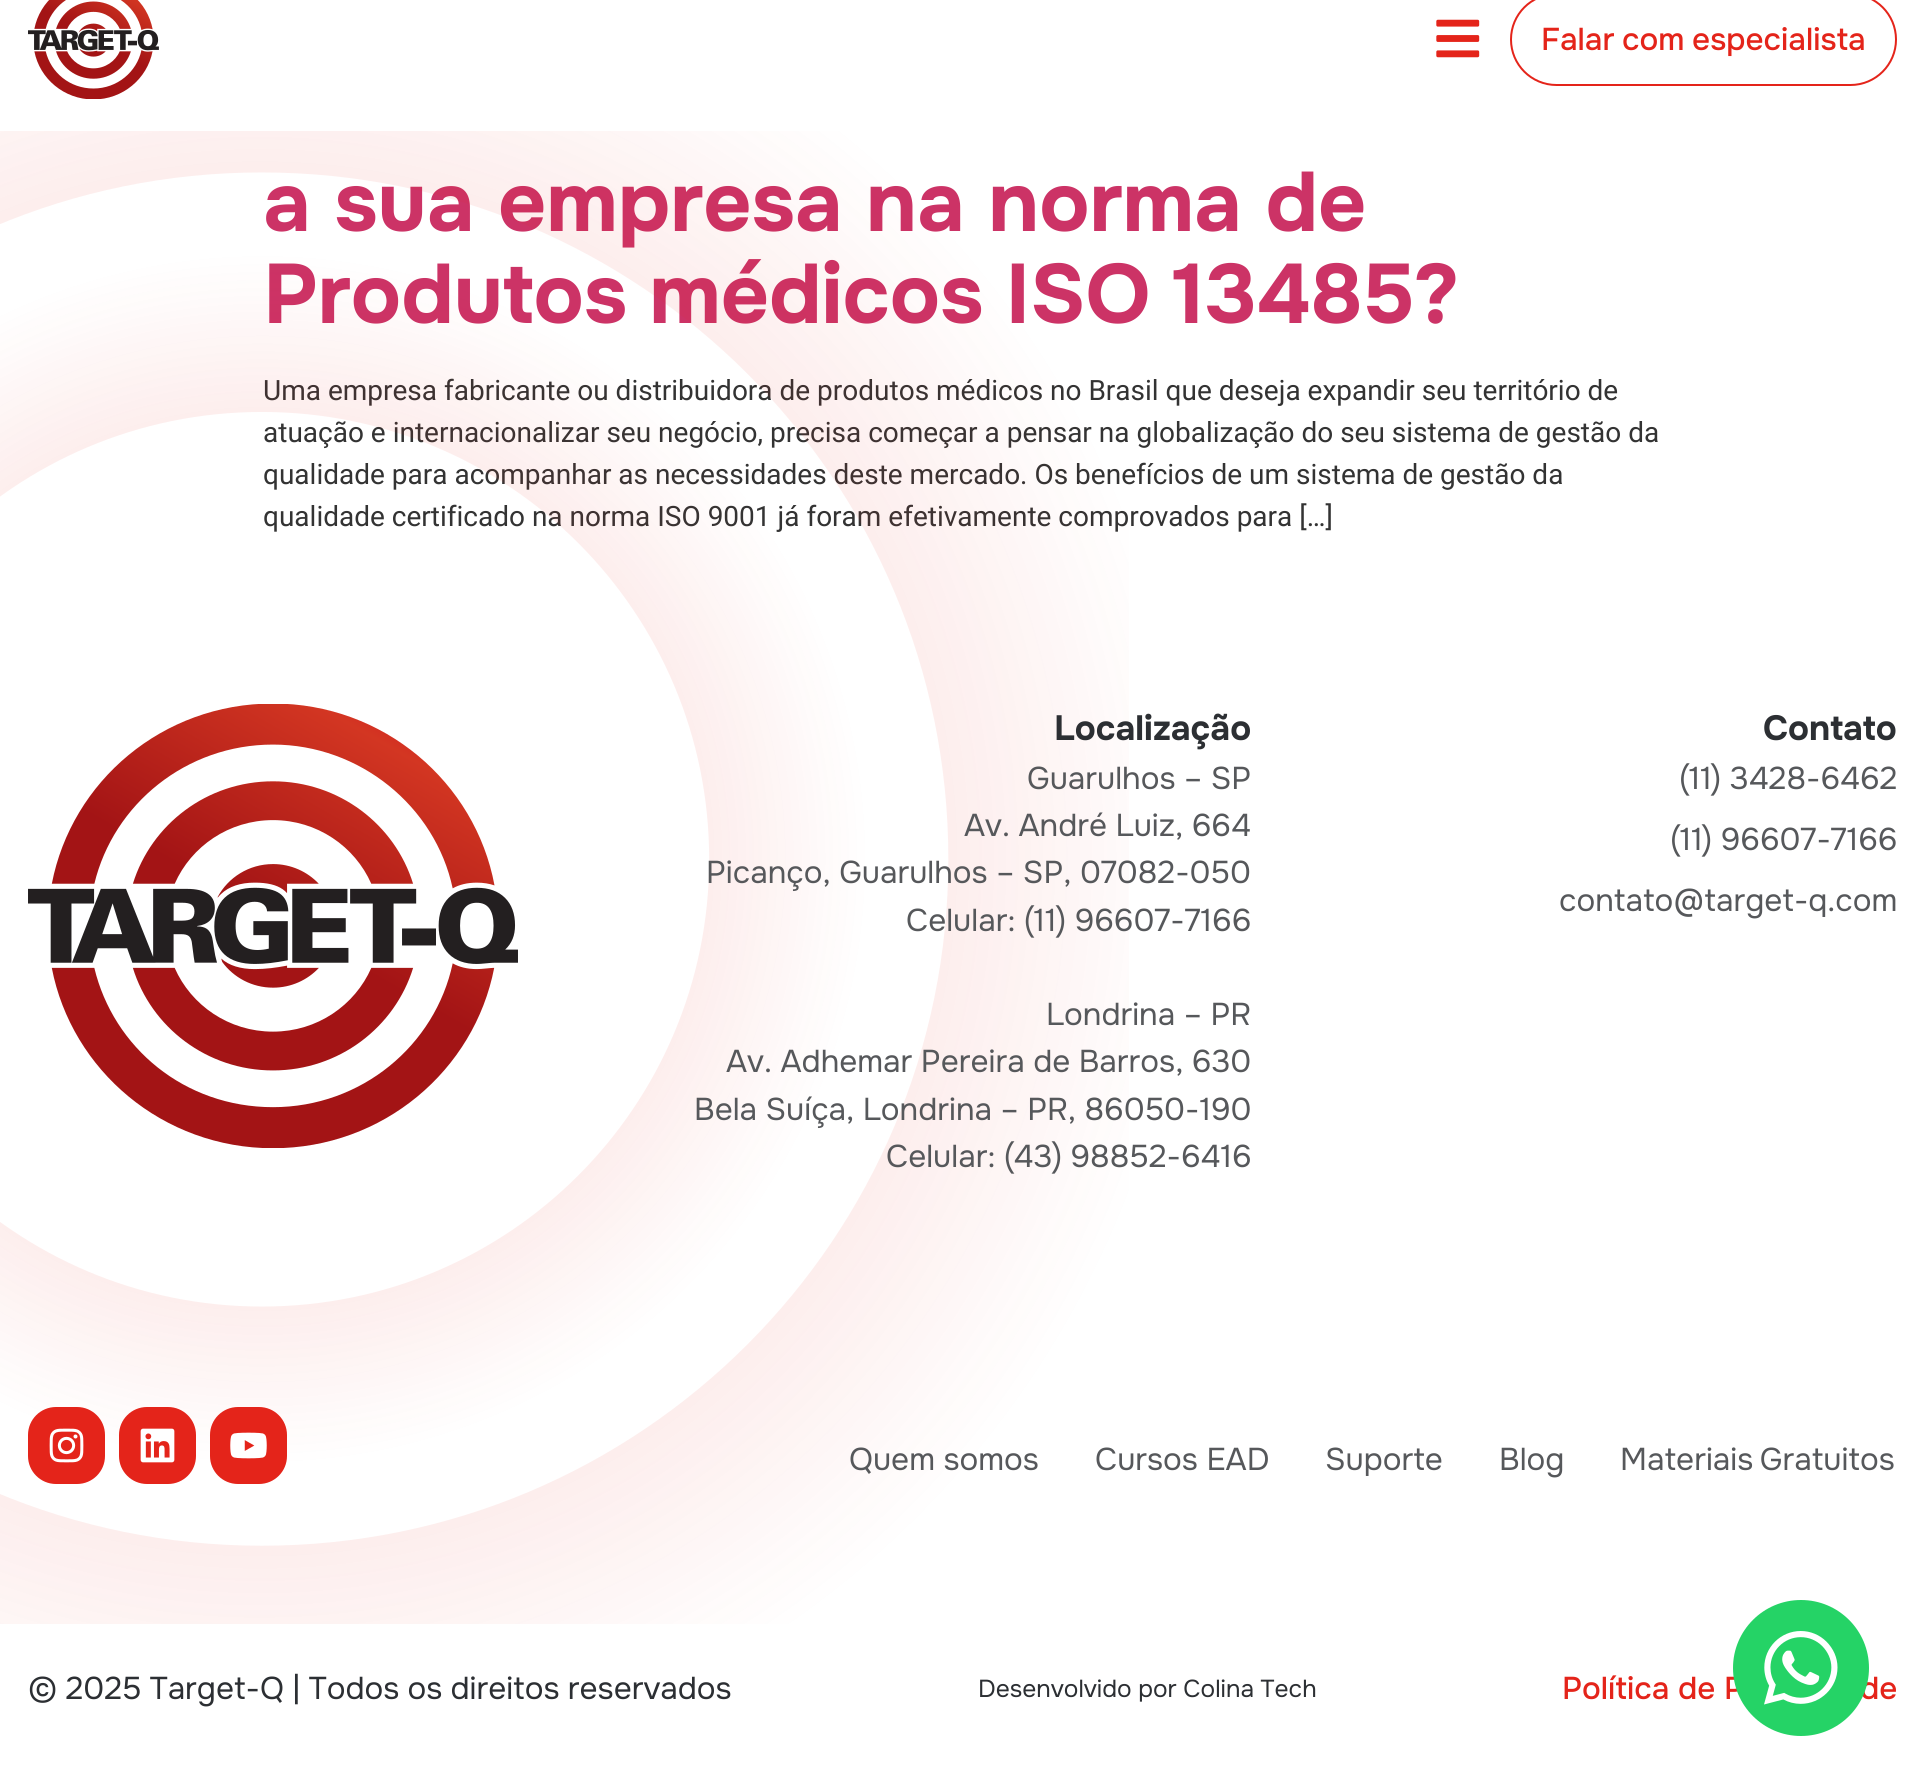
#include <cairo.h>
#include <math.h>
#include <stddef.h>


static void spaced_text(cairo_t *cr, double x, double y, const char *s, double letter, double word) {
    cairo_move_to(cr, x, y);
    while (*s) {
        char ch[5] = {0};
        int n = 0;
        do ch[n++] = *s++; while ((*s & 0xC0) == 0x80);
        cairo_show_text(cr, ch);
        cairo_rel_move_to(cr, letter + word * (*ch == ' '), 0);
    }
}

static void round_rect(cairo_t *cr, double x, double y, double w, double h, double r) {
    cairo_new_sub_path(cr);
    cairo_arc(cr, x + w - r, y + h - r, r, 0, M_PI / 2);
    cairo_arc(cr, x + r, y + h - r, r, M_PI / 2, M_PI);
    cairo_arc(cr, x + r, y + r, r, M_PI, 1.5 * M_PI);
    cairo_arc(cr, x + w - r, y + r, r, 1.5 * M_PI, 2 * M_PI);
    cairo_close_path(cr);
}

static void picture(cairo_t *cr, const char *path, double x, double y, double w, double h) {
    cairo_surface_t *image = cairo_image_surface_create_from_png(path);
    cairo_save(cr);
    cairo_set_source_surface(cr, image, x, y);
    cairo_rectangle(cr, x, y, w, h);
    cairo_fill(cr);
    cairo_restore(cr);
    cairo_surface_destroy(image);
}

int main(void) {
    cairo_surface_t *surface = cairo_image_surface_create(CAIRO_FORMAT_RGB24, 1924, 1791);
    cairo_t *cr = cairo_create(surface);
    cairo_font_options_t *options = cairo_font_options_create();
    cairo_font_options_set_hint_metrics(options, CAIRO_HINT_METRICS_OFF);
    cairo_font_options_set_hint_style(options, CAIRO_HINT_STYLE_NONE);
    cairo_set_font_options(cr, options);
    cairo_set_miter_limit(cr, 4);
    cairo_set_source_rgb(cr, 1, 1, 1);
    cairo_paint(cr);
    picture(cr, "img1.png", 28, 0, 131, 99);
    picture(cr, "img2.png", 1436, 19, 44, 39);
    round_rect(cr, 1511, -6, 385, 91, 45.5);
    cairo_set_source_rgb(cr, 0.894, 0.141, 0.102);
    cairo_stroke(cr);
    cairo_select_font_face(cr, "Onest Medium", CAIRO_FONT_SLANT_NORMAL, CAIRO_FONT_WEIGHT_NORMAL);
    cairo_set_font_size(cr, 31.5);
    spaced_text(cr, 1541, 50, "Falar com especialista", 0, -1);
    cairo_select_font_face(cr, "Onest", CAIRO_FONT_SLANT_NORMAL, CAIRO_FONT_WEIGHT_BOLD);
    cairo_set_font_size(cr, 84);
    cairo_set_source_rgb(cr, 0.8, 0.2, 0.4);
    cairo_move_to(cr, 263, 231);
    cairo_show_text(cr, "a sua empresa na norma de");
    spaced_text(cr, 263, 323, "Produtos médicos ISO 13485?", 0, -1.5);
    cairo_select_font_face(cr, "Roboto", CAIRO_FONT_SLANT_NORMAL, CAIRO_FONT_WEIGHT_NORMAL);
    cairo_set_font_size(cr, 28);
    cairo_set_source_rgb(cr, 0.2, 0.2, 0.2);
    cairo_move_to(cr, 263, 400);
    cairo_show_text(cr, "Uma empresa fabricante ou distribuidora de produtos médicos no Brasil que deseja expandir seu território de");
    cairo_move_to(cr, 263, 442);
    cairo_show_text(cr, "atuação e internacionalizar seu negócio, precisa começar a pensar na globalização do seu sistema de gestão da");
    cairo_move_to(cr, 263, 484);
    cairo_show_text(cr, "qualidade para acompanhar as necessidades deste mercado. Os benefícios de um sistema de gestão da");
    cairo_move_to(cr, 263, 526);
    cairo_show_text(cr, "qualidade certificado na norma ISO 9001 já foram efetivamente comprovados para […]");
    picture(cr, "img3.png", 0, 131, 1129, 1493);
    picture(cr, "img4.png", 28, 704, 490, 444);
    cairo_set_source_rgb(cr, 0.894, 0.141, 0.102);
    round_rect(cr, 28, 1407, 77, 77, 28);
    cairo_fill(cr);
    picture(cr, "img5.png", 49, 1428, 35, 35);
    round_rect(cr, 119, 1407, 77, 77, 28);
    cairo_fill(cr);
    picture(cr, "img6.png", 140, 1428, 35, 35);
    round_rect(cr, 210, 1407, 77, 77, 28);
    cairo_fill(cr);
    picture(cr, "img7.png", 230, 1432, 37, 27);
    cairo_select_font_face(cr, "Onest", CAIRO_FONT_SLANT_NORMAL, CAIRO_FONT_WEIGHT_BOLD);
    cairo_set_font_size(cr, 35);
    cairo_set_source_rgb(cr, 0.173, 0.184, 0.2);
    cairo_move_to(cr, 1054, 740);
    cairo_show_text(cr, "Localização");
    cairo_select_font_face(cr, "Onest", CAIRO_FONT_SLANT_NORMAL, CAIRO_FONT_WEIGHT_NORMAL);
    cairo_set_font_size(cr, 31.5);
    cairo_set_source_rgb(cr, 0.337, 0.345, 0.357);
    cairo_move_to(cr, 1027, 789);
    cairo_show_text(cr, "Guarulhos – SP");
    cairo_move_to(cr, 964, 836);
    cairo_show_text(cr, "Av. André Luiz, 664");
    cairo_move_to(cr, 706, 883);
    cairo_show_text(cr, "Picanço, Guarulhos – SP, 07082-050");
    cairo_move_to(cr, 906, 931);
    cairo_show_text(cr, "Celular: (11) 96607-7166");
    cairo_move_to(cr, 1046, 1025);
    cairo_show_text(cr, "Londrina – PR");
    cairo_move_to(cr, 726, 1072);
    cairo_show_text(cr, "Av. Adhemar Pereira de Barros, 630");
    cairo_move_to(cr, 694, 1120);
    cairo_show_text(cr, "Bela Suíça, Londrina – PR, 86050-190");
    cairo_move_to(cr, 886, 1167);
    cairo_show_text(cr, "Celular: (43) 98852-6416");
    cairo_select_font_face(cr, "Onest", CAIRO_FONT_SLANT_NORMAL, CAIRO_FONT_WEIGHT_BOLD);
    cairo_set_font_size(cr, 35);
    cairo_set_source_rgb(cr, 0.173, 0.184, 0.2);
    cairo_move_to(cr, 1763, 740);
    cairo_show_text(cr, "Contato");
    cairo_select_font_face(cr, "Onest", CAIRO_FONT_SLANT_NORMAL, CAIRO_FONT_WEIGHT_NORMAL);
    cairo_set_font_size(cr, 31.5);
    cairo_set_source_rgb(cr, 0.337, 0.345, 0.357);
    cairo_move_to(cr, 1679, 789);
    cairo_show_text(cr, "(11) 3428-6462");
    cairo_move_to(cr, 1670, 850);
    cairo_show_text(cr, "(11) 96607-7166");
    cairo_move_to(cr, 1559, 911);
    cairo_show_text(cr, "contato@target-q.com");
    cairo_move_to(cr, 849, 1470);
    cairo_show_text(cr, "Quem somos");
    cairo_move_to(cr, 1095, 1470);
    cairo_show_text(cr, "Cursos EAD");
    cairo_move_to(cr, 1325, 1470);
    cairo_show_text(cr, "Suporte");
    cairo_move_to(cr, 1499, 1470);
    cairo_show_text(cr, "Blog");
    spaced_text(cr, 1620, 1470, "Materiais Gratuitos", 0, -2);
    cairo_select_font_face(cr, "Onest Medium", CAIRO_FONT_SLANT_NORMAL, CAIRO_FONT_WEIGHT_NORMAL);
    cairo_set_source_rgb(cr, 0.894, 0.141, 0.102);
    cairo_move_to(cr, 1562, 1699);
    cairo_show_text(cr, "Política de P");
    cairo_move_to(cr, 1860, 1699);
    cairo_show_text(cr, "de");
    cairo_set_source_rgb(cr, 0.145, 0.827, 0.4);
    cairo_new_path(cr);
    cairo_arc(cr, 1801, 1668, 68, 0, 2 * M_PI);
    cairo_fill(cr);
    picture(cr, "img8.png", 1764, 1631, 74, 74);
    cairo_select_font_face(cr, "Onest", CAIRO_FONT_SLANT_NORMAL, CAIRO_FONT_WEIGHT_NORMAL);
    cairo_set_source_rgb(cr, 0.173, 0.184, 0.2);
    spaced_text(cr, 28, 1699, "© 2025 Target-Q | Todos os direitos reservados", 0, -0.25);
    cairo_set_font_size(cr, 24.5);
    cairo_move_to(cr, 978, 1697);
    cairo_show_text(cr, "Desenvolvido por Colina Tech");
    cairo_surface_write_to_png(surface, "page.png");
    cairo_font_options_destroy(options);
    cairo_destroy(cr);
    cairo_surface_destroy(surface);
    return 0;
}
